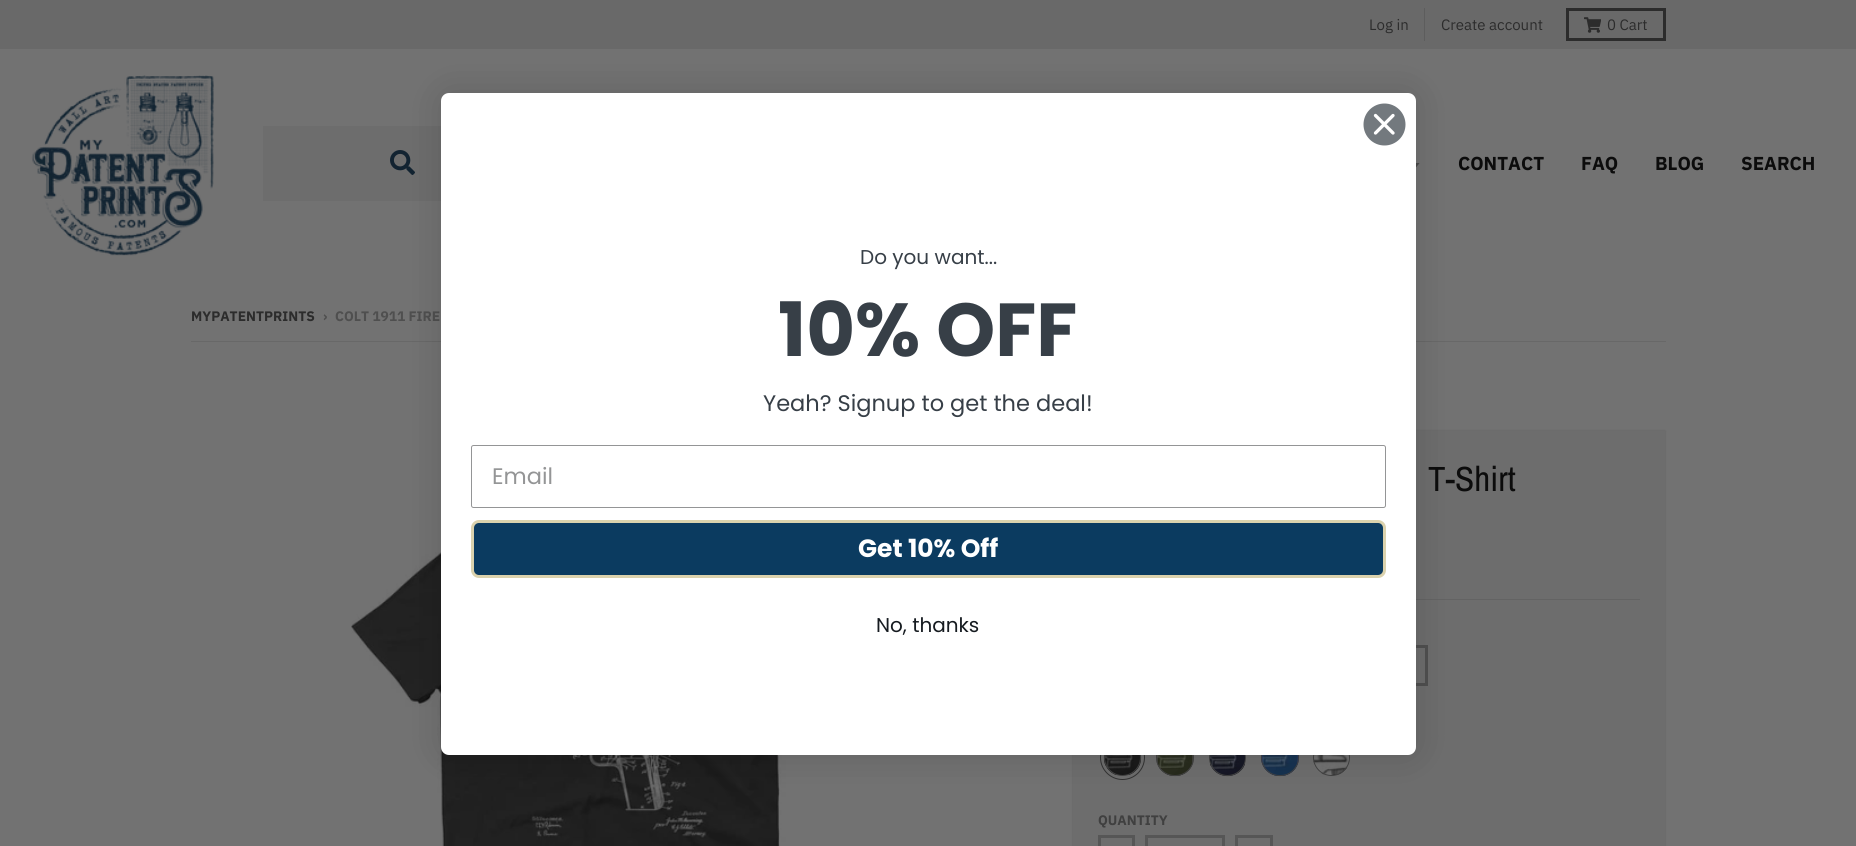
#include <cairo.h>
#include <math.h>
#include <stddef.h>


static void round_rect(cairo_t *cr, double x, double y, double w, double h, double r) {
    cairo_new_sub_path(cr);
    cairo_arc(cr, x + w - r, y + h - r, r, 0, M_PI / 2);
    cairo_arc(cr, x + r, y + h - r, r, M_PI / 2, M_PI);
    cairo_arc(cr, x + r, y + r, r, M_PI, 1.5 * M_PI);
    cairo_arc(cr, x + w - r, y + r, r, 1.5 * M_PI, 2 * M_PI);
    cairo_close_path(cr);
}

static void shadow(cairo_t *cr, double x, double y, double w, double h, double r, double blur, double alpha) {
    cairo_push_group_with_content(cr, CAIRO_CONTENT_ALPHA);
    cairo_set_operator(cr, CAIRO_OPERATOR_SOURCE);
    for (int i = 15; i >= -15 && fmin(w, h) + blur * i / 3 > 0; i -= 2) {
        double e = blur * i / 6;
        cairo_set_source_rgba(cr, 0, 0, 0, alpha * erfc((i - 1) / 8.5) / 2);
        round_rect(cr, x - e, y - e, w + 2 * e, h + 2 * e, fmax(0, fmin(r + e + blur * .6, fmin(w, h) / 2 + e)));
        cairo_fill(cr);
    }
    cairo_pattern_t *soft = cairo_pop_group(cr);
    cairo_mask(cr, soft);
    cairo_pattern_destroy(soft);
}

static void picture(cairo_t *cr, const char *path, double x, double y, double w, double h) {
    cairo_surface_t *image = cairo_image_surface_create_from_png(path);
    cairo_save(cr);
    cairo_set_source_surface(cr, image, x, y);
    cairo_rectangle(cr, x, y, w, h);
    cairo_fill(cr);
    cairo_restore(cr);
    cairo_surface_destroy(image);
}

int main(void) {
    cairo_surface_t *surface = cairo_image_surface_create(CAIRO_FORMAT_RGB24, 1856, 846);
    cairo_t *cr = cairo_create(surface);
    cairo_font_options_t *options = cairo_font_options_create();
    cairo_font_options_set_hint_metrics(options, CAIRO_HINT_METRICS_OFF);
    cairo_font_options_set_hint_style(options, CAIRO_HINT_STYLE_NONE);
    cairo_set_font_options(cr, options);
    cairo_set_miter_limit(cr, 4);
    cairo_set_source_rgb(cr, 0.447, 0.447, 0.447);
    cairo_paint(cr);
    cairo_set_source_rgb(cr, 0.412, 0.412, 0.412);
    cairo_rectangle(cr, 0, 0, 1856, 49);
    cairo_fill(cr);
    cairo_set_source_rgb(cr, 0.365, 0.365, 0.365);
    cairo_rectangle(cr, 1424, 8, 1, 33);
    cairo_fill(cr);
    cairo_select_font_face(cr, "IBM Plex Sans", CAIRO_FONT_SLANT_NORMAL, CAIRO_FONT_WEIGHT_NORMAL);
    cairo_set_font_size(cr, 15);
    cairo_set_source_rgb(cr, 0.173, 0.173, 0.173);
    cairo_move_to(cr, 1369, 30);
    cairo_show_text(cr, "Log in");
    cairo_move_to(cr, 1441, 30);
    cairo_show_text(cr, "Create account");
    cairo_rectangle(cr, 1567.5, 9.5, 97, 30);
    cairo_set_line_width(cr, 3);
    cairo_stroke(cr);
    picture(cr, "img1.png", 1584, 17, 17, 16);
    cairo_move_to(cr, 1607, 30);
    cairo_show_text(cr, "0 Cart");
    picture(cr, "img2.png", 31, 75, 183, 181);
    cairo_set_source_rgb(cr, 0.427, 0.427, 0.427);
    cairo_rectangle(cr, 263, 126, 178, 75);
    cairo_fill(cr);
    picture(cr, "img3.png", 390, 150, 25, 25);
    cairo_save(cr);
    cairo_rectangle(cr, 1411, 163, 10, 6);
    cairo_clip(cr);
    cairo_set_source_rgb(cr, 0.286, 0.286, 0.286);
    cairo_new_path(cr);
    cairo_move_to(cr, 1411, 162.5);
    cairo_line_to(cr, 1415.5, 168);
    cairo_line_to(cr, 1420, 162.5);
    cairo_close_path(cr);
    cairo_fill(cr);
    cairo_restore(cr);
    cairo_select_font_face(cr, "IBM Plex Sans", CAIRO_FONT_SLANT_NORMAL, CAIRO_FONT_WEIGHT_BOLD);
    cairo_set_font_size(cr, 18.75);
    cairo_set_source_rgb(cr, 0.047, 0.047, 0.047);
    cairo_move_to(cr, 1458, 170);
    cairo_show_text(cr, "CONTACT");
    cairo_move_to(cr, 1581, 170);
    cairo_show_text(cr, "FAQ");
    cairo_move_to(cr, 1655, 170);
    cairo_show_text(cr, "BLOG");
    cairo_move_to(cr, 1741, 170);
    cairo_show_text(cr, "SEARCH");
    cairo_set_font_size(cr, 13.75);
    cairo_set_source_rgb(cr, 0.173, 0.173, 0.173);
    cairo_move_to(cr, 191, 321);
    cairo_show_text(cr, "MYPATENTPRINTS");
    cairo_set_source_rgb(cr, 0.31, 0.31, 0.31);
    cairo_move_to(cr, 323, 321);
    cairo_show_text(cr, "›");
    cairo_move_to(cr, 335, 321);
    cairo_show_text(cr, "COLT 1911 FIRE");
    cairo_set_source_rgb(cr, 0.408, 0.408, 0.408);
    cairo_rectangle(cr, 191, 341, 1475, 1);
    cairo_fill(cr);
    picture(cr, "img4.png", 351, 498, 526, 348);
    cairo_set_source_rgb(cr, 0.047, 0.047, 0.047);
    shadow(cr, 1073, 431, 592, 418, 0, 1, 0.2);
    cairo_set_source_rgb(cr, 0.427, 0.427, 0.427);
    cairo_rectangle(cr, 1073, 431, 592, 415);
    cairo_fill(cr);
    cairo_select_font_face(cr, "Archivo Narrow", CAIRO_FONT_SLANT_NORMAL, CAIRO_FONT_WEIGHT_NORMAL);
    cairo_set_font_size(cr, 35);
    cairo_set_source_rgb(cr, 0.047, 0.047, 0.047);
    cairo_move_to(cr, 1428, 491);
    cairo_show_text(cr, "T-Shirt");
    cairo_set_source_rgb(cr, 0.388, 0.388, 0.388);
    cairo_rectangle(cr, 1416, 599, 224, 1);
    cairo_fill(cr);
    cairo_rectangle(cr, 1366.5, 646.5, 60, 38);
    cairo_set_source_rgb(cr, 0.31, 0.31, 0.31);
    cairo_stroke(cr);
    cairo_arc(cr, 1122.5, 757.5, 22, 0, 2 * M_PI);
    cairo_set_source_rgb(cr, 0.196, 0.196, 0.196);
    cairo_set_line_width(cr, 1);
    cairo_stroke(cr);
    picture(cr, "img5.png", 1103, 755, 39, 20);
    cairo_arc(cr, 1122.5, 757.5, 18, 0, 2 * M_PI);
    cairo_set_source_rgb(cr, 0.259, 0.259, 0.259);
    cairo_stroke(cr);
    cairo_set_source_rgb(cr, 0.337, 0.337, 0.337);
    round_rect(cr, 1156, 739, 38, 37, 18.5);
    cairo_fill(cr);
    picture(cr, "img6.png", 1157, 755, 36, 22);
    round_rect(cr, 1156.5, 739.5, 37, 36, 18);
    cairo_set_source_rgb(cr, 0.259, 0.259, 0.259);
    cairo_stroke(cr);
    picture(cr, "img7.png", 1210, 755, 35, 22);
    cairo_arc(cr, 1227.5, 757.5, 18, 0, 2 * M_PI);
    cairo_stroke(cr);
    cairo_set_source_rgb(cr, 0.149, 0.212, 0.4);
    round_rect(cr, 1261, 739, 38, 37, 18.5);
    cairo_fill(cr);
    picture(cr, "img8.png", 1262, 755, 36, 22);
    round_rect(cr, 1261.5, 739.5, 37, 36, 18);
    cairo_set_source_rgb(cr, 0.259, 0.259, 0.259);
    cairo_stroke(cr);
    picture(cr, "img9.png", 1313, 755, 36, 20);
    cairo_arc(cr, 1331.5, 757.5, 18, 0, 2 * M_PI);
    cairo_stroke(cr);
    cairo_select_font_face(cr, "IBM Plex Sans", CAIRO_FONT_SLANT_NORMAL, CAIRO_FONT_WEIGHT_BOLD);
    cairo_set_font_size(cr, 13.75);
    cairo_set_source_rgb(cr, 0.251, 0.251, 0.251);
    cairo_move_to(cr, 1098, 825);
    cairo_show_text(cr, "QUANTITY");
    cairo_rectangle(cr, 1099.5, 836.5, 34, 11);
    cairo_set_source_rgb(cr, 0.337, 0.337, 0.337);
    cairo_set_line_width(cr, 3);
    cairo_stroke(cr);
    cairo_rectangle(cr, 1146.5, 836.5, 77, 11);
    cairo_stroke(cr);
    cairo_rectangle(cr, 1236.5, 836.5, 35, 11);
    cairo_stroke(cr);
    cairo_set_source_rgb(cr, 0, 0, 0);
    shadow(cr, 441, 93, 975, 662, 8, 19, 0.15);
    cairo_set_source_rgb(cr, 1, 1, 1);
    round_rect(cr, 441, 93, 975, 662, 8);
    cairo_fill(cr);
    cairo_set_source_rgb(cr, 0.451, 0.475, 0.494);
    cairo_arc(cr, 1384.5, 124.5, 21, 0, 2 * M_PI);
    cairo_fill(cr);
    cairo_new_path(cr);
    cairo_move_to(cr, 1375.5, 115.5);
    cairo_line_to(cr, 1393, 133);
    cairo_move_to(cr, 1375.5, 133);
    cairo_line_to(cr, 1393, 115.5);
    cairo_close_path(cr);
    cairo_set_source_rgb(cr, 1, 1, 1);
    cairo_set_line_width(cr, 3.3);
    cairo_set_line_cap(cr, CAIRO_LINE_CAP_ROUND);
    cairo_set_line_join(cr, CAIRO_LINE_JOIN_ROUND);
    cairo_stroke(cr);
    cairo_select_font_face(cr, "Poppins", CAIRO_FONT_SLANT_NORMAL, CAIRO_FONT_WEIGHT_NORMAL);
    cairo_set_font_size(cr, 20);
    cairo_set_source_rgb(cr, 0.216, 0.247, 0.278);
    cairo_move_to(cr, 860, 264);
    cairo_show_text(cr, "Do you want...");
    cairo_select_font_face(cr, "Poppins", CAIRO_FONT_SLANT_NORMAL, CAIRO_FONT_WEIGHT_BOLD);
    cairo_set_font_size(cr, 75);
    cairo_move_to(cr, 778, 356);
    cairo_show_text(cr, "10% OFF");
    cairo_select_font_face(cr, "Poppins", CAIRO_FONT_SLANT_NORMAL, CAIRO_FONT_WEIGHT_NORMAL);
    cairo_set_font_size(cr, 22.5);
    cairo_move_to(cr, 763, 411);
    cairo_show_text(cr, "Yeah? Signup to get the deal!");
    round_rect(cr, 471.5, 445.5, 914, 62, 2);
    cairo_set_source_rgb(cr, 0.58, 0.584, 0.588);
    cairo_set_line_width(cr, 1);
    cairo_set_line_cap(cr, CAIRO_LINE_CAP_BUTT);
    cairo_set_line_join(cr, CAIRO_LINE_JOIN_MITER);
    cairo_stroke(cr);
    cairo_move_to(cr, 492, 484);
    cairo_show_text(cr, "Email");
    cairo_set_source_rgb(cr, 0.043, 0.231, 0.376);
    round_rect(cr, 472.5, 521.5, 912, 55, 6.5);
    cairo_fill_preserve(cr);
    cairo_set_source_rgb(cr, 0.859, 0.824, 0.678);
    cairo_set_line_width(cr, 3);
    cairo_stroke(cr);
    cairo_select_font_face(cr, "Poppins", CAIRO_FONT_SLANT_NORMAL, CAIRO_FONT_WEIGHT_BOLD);
    cairo_set_font_size(cr, 25);
    cairo_set_source_rgb(cr, 1, 1, 1);
    cairo_move_to(cr, 858, 557);
    cairo_show_text(cr, "Get 10% Off");
    cairo_select_font_face(cr, "Poppins", CAIRO_FONT_SLANT_NORMAL, CAIRO_FONT_WEIGHT_NORMAL);
    cairo_set_font_size(cr, 20);
    cairo_set_source_rgb(cr, 0.086, 0.106, 0.125);
    cairo_move_to(cr, 876, 632);
    cairo_show_text(cr, "No, thanks");
    cairo_surface_write_to_png(surface, "page.png");
    cairo_font_options_destroy(options);
    cairo_destroy(cr);
    cairo_surface_destroy(surface);
    return 0;
}
